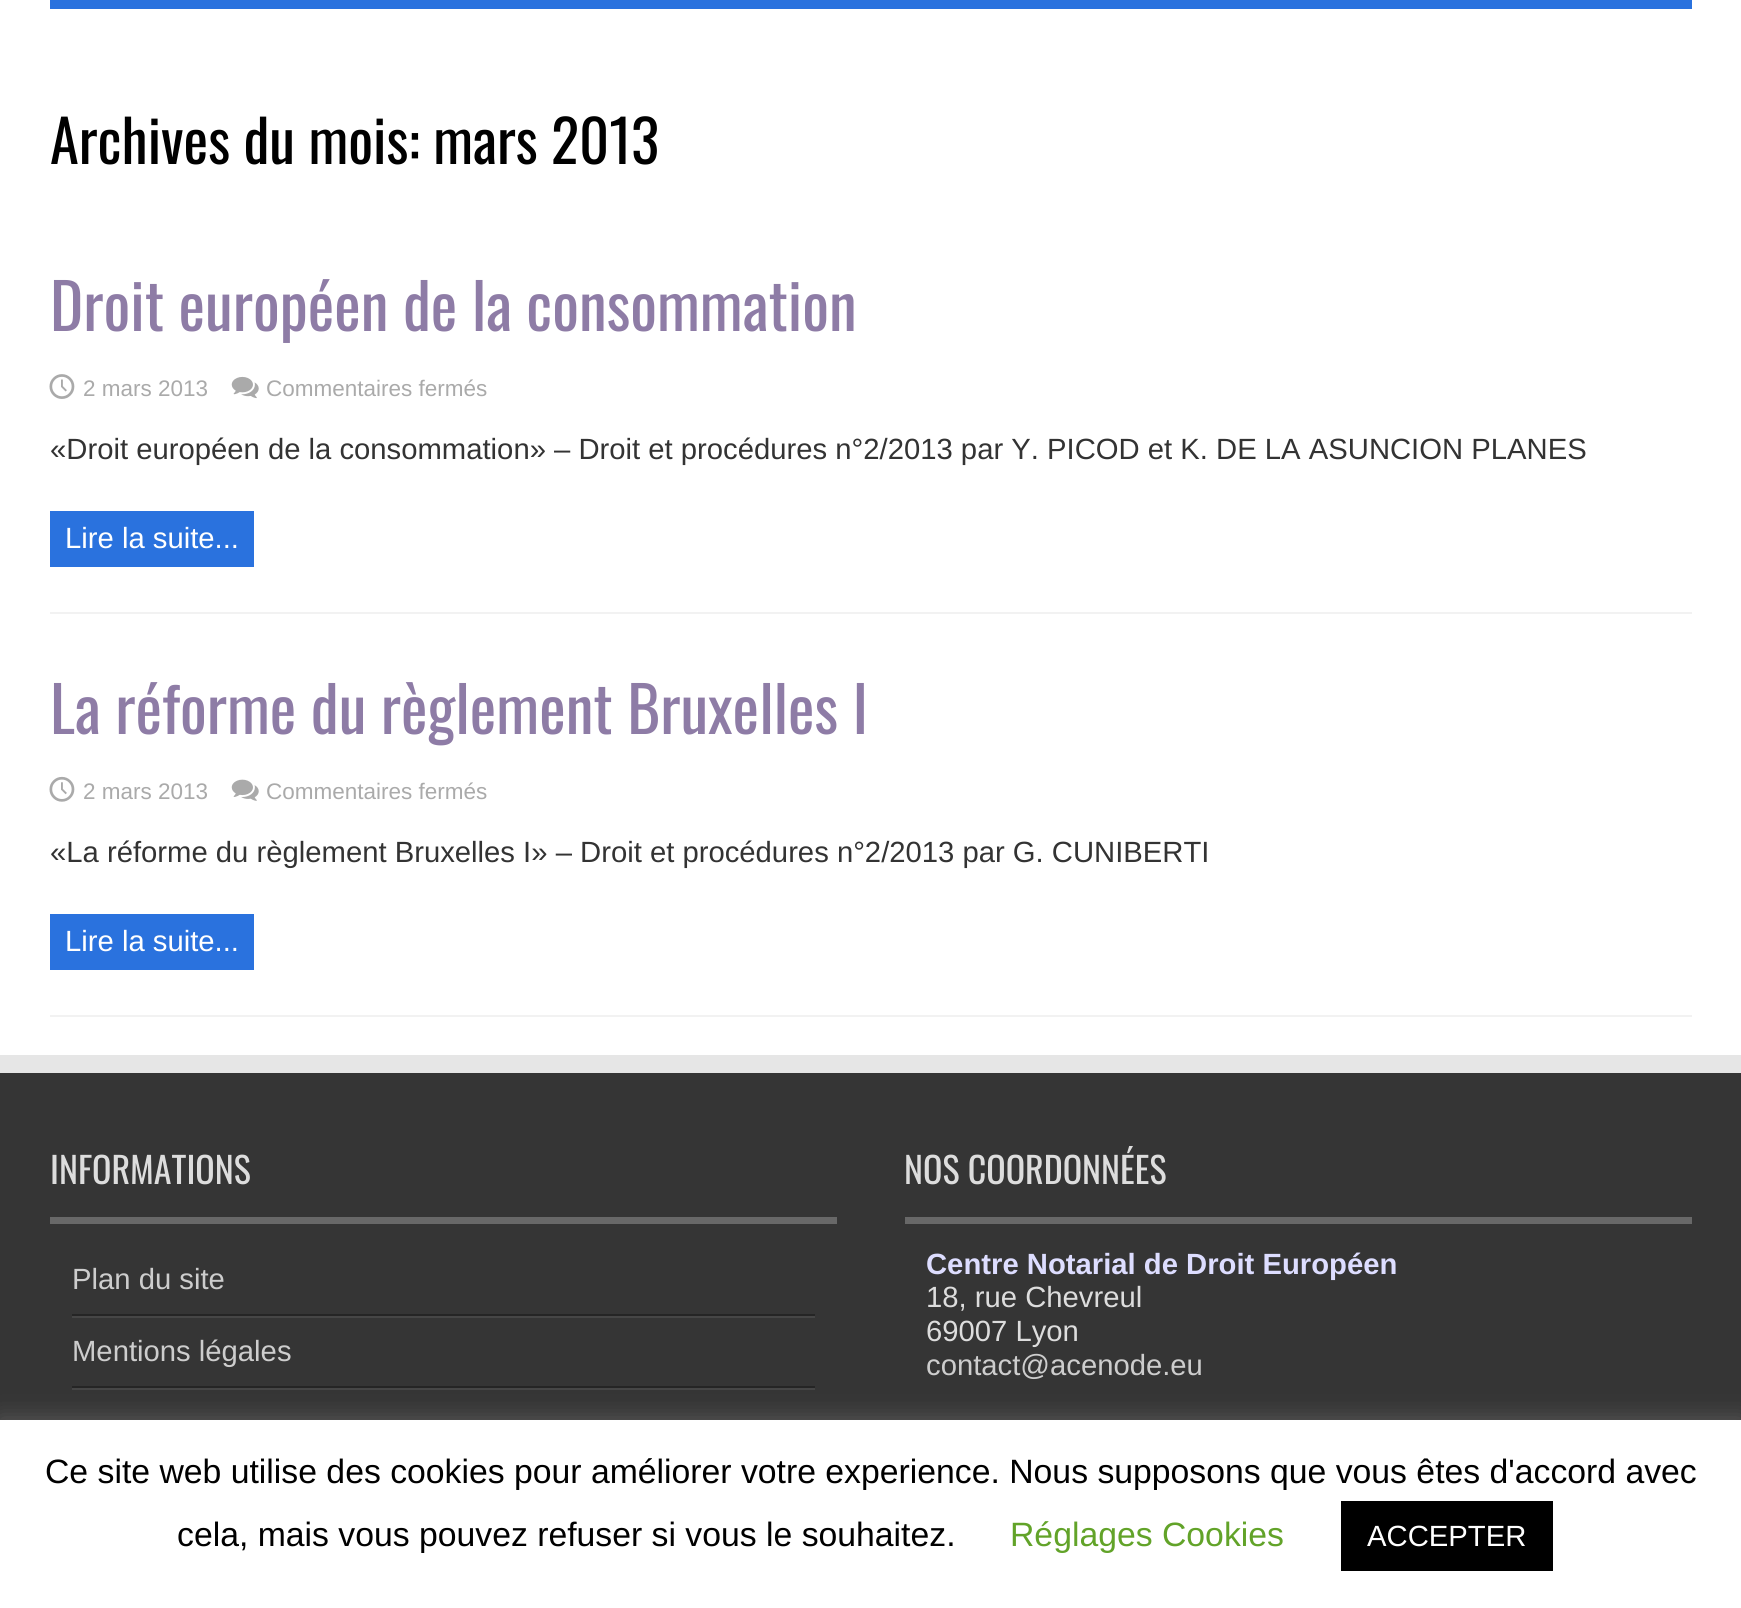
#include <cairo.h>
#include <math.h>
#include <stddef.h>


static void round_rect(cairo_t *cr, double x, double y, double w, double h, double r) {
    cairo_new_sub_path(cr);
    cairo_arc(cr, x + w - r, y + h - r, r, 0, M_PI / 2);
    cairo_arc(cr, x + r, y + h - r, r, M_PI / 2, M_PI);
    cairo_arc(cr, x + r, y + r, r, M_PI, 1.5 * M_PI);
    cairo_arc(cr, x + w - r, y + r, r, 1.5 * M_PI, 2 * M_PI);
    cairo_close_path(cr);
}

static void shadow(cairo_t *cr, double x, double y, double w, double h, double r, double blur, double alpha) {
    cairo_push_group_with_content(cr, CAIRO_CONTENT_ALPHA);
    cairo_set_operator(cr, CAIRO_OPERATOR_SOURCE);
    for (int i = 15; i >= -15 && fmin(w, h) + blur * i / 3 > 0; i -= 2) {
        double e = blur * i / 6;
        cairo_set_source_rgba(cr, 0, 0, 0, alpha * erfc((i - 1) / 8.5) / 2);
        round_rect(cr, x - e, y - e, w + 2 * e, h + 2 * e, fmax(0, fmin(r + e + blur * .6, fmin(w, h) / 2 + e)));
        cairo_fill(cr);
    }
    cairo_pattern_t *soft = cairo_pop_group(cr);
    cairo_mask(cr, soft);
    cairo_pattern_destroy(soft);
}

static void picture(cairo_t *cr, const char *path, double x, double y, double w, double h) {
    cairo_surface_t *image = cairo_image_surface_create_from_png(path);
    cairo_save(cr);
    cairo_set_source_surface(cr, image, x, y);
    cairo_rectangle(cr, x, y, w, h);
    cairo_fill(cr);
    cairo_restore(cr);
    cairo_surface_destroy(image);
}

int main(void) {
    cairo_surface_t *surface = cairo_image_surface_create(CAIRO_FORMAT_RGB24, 1741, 1608);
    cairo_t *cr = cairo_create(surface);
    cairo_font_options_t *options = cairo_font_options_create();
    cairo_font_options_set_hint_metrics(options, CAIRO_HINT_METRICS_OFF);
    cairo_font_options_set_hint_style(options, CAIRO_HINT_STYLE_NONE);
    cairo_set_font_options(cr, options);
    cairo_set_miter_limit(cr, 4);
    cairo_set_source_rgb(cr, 1, 1, 1);
    cairo_paint(cr);
    cairo_set_source_rgb(cr, 0.165, 0.447, 0.871);
    cairo_rectangle(cr, 50, 0, 1642, 9);
    cairo_fill(cr);
    cairo_select_font_face(cr, "Oswald", CAIRO_FONT_SLANT_NORMAL, CAIRO_FONT_WEIGHT_NORMAL);
    cairo_set_font_size(cr, 58.5);
    cairo_set_source_rgb(cr, 0, 0, 0);
    cairo_move_to(cr, 50, 164);
    cairo_show_text(cr, "Archives du mois: mars 2013");
    cairo_set_source_rgb(cr, 0.949, 0.949, 0.949);
    cairo_rectangle(cr, 50, 612, 1642, 2);
    cairo_fill(cr);
    cairo_set_font_size(cr, 63);
    cairo_set_source_rgb(cr, 0.557, 0.486, 0.651);
    cairo_move_to(cr, 50, 331);
    cairo_show_text(cr, "Droit européen de la consommation");
    picture(cr, "img1.png", 49, 374, 26, 25);
    cairo_select_font_face(cr, "Liberation Sans", CAIRO_FONT_SLANT_NORMAL, CAIRO_FONT_WEIGHT_NORMAL);
    cairo_set_font_size(cr, 22.5);
    cairo_set_source_rgb(cr, 0.667, 0.667, 0.667);
    cairo_move_to(cr, 83, 396);
    cairo_show_text(cr, "2 mars 2013");
    picture(cr, "img2.png", 231, 376, 28, 23);
    cairo_move_to(cr, 266, 396);
    cairo_show_text(cr, "Commentaires fermés");
    cairo_set_font_size(cr, 29.25);
    cairo_set_source_rgb(cr, 0.2, 0.2, 0.2);
    cairo_move_to(cr, 50, 459);
    cairo_show_text(cr, "«Droit européen de la consommation» – Droit et procédures n°2/2013 par Y. PICOD et K. DE LA ASUNCION PLANES");
    cairo_set_source_rgb(cr, 0.165, 0.447, 0.871);
    cairo_rectangle(cr, 50, 511, 204, 56);
    cairo_fill(cr);
    cairo_set_source_rgb(cr, 1, 1, 1);
    cairo_move_to(cr, 65, 548);
    cairo_show_text(cr, "Lire la suite...");
    cairo_set_source_rgb(cr, 0.949, 0.949, 0.949);
    cairo_rectangle(cr, 50, 1015, 1642, 2);
    cairo_fill(cr);
    cairo_select_font_face(cr, "Oswald", CAIRO_FONT_SLANT_NORMAL, CAIRO_FONT_WEIGHT_NORMAL);
    cairo_set_font_size(cr, 63);
    cairo_set_source_rgb(cr, 0.557, 0.486, 0.651);
    cairo_move_to(cr, 50, 734);
    cairo_show_text(cr, "La réforme du règlement Bruxelles I");
    picture(cr, "img3.png", 49, 776, 26, 26);
    cairo_select_font_face(cr, "Liberation Sans", CAIRO_FONT_SLANT_NORMAL, CAIRO_FONT_WEIGHT_NORMAL);
    cairo_set_font_size(cr, 22.5);
    cairo_set_source_rgb(cr, 0.667, 0.667, 0.667);
    cairo_move_to(cr, 83, 799);
    cairo_show_text(cr, "2 mars 2013");
    picture(cr, "img4.png", 231, 779, 28, 22);
    cairo_move_to(cr, 266, 799);
    cairo_show_text(cr, "Commentaires fermés");
    cairo_set_font_size(cr, 29.25);
    cairo_set_source_rgb(cr, 0.2, 0.2, 0.2);
    cairo_move_to(cr, 50, 862);
    cairo_show_text(cr, "«La réforme du règlement Bruxelles I» – Droit et procédures n°2/2013 par G. CUNIBERTI");
    cairo_set_source_rgb(cr, 0.165, 0.447, 0.871);
    cairo_rectangle(cr, 50, 914, 204, 56);
    cairo_fill(cr);
    cairo_set_source_rgb(cr, 1, 1, 1);
    cairo_move_to(cr, 65, 951);
    cairo_show_text(cr, "Lire la suite...");
    cairo_set_source_rgb(cr, 0.902, 0.902, 0.902);
    cairo_new_path(cr);
    cairo_move_to(cr, 0, 1055);
    cairo_line_to(cr, 0, 1073);
    cairo_line_to(cr, 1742, 1073);
    cairo_line_to(cr, 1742, 1584);
    cairo_line_to(cr, 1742, 1055);
    cairo_close_path(cr);
    cairo_fill(cr);
    cairo_set_source_rgb(cr, 0.208, 0.208, 0.208);
    cairo_rectangle(cr, 0, 1073, 1741, 347);
    cairo_fill(cr);
    cairo_set_source_rgb(cr, 0.408, 0.408, 0.408);
    cairo_rectangle(cr, 50, 1217, 787, 7);
    cairo_fill(cr);
    cairo_select_font_face(cr, "Oswald", CAIRO_FONT_SLANT_NORMAL, CAIRO_FONT_WEIGHT_NORMAL);
    cairo_set_font_size(cr, 36);
    cairo_set_source_rgb(cr, 0.867, 0.867, 0.867);
    cairo_move_to(cr, 50, 1184);
    cairo_show_text(cr, "INFORMATIONS");
    cairo_set_source_rgb(cr, 0.145, 0.145, 0.145);
    cairo_rectangle(cr, 72, 1314, 743, 2);
    cairo_fill(cr);
    cairo_select_font_face(cr, "Liberation Sans", CAIRO_FONT_SLANT_NORMAL, CAIRO_FONT_WEIGHT_NORMAL);
    cairo_set_font_size(cr, 29.25);
    cairo_set_source_rgb(cr, 0.804, 0.804, 0.804);
    cairo_move_to(cr, 72, 1289);
    cairo_show_text(cr, "Plan du site");
    cairo_set_source_rgb(cr, 0.275, 0.275, 0.275);
    cairo_rectangle(cr, 72, 1316, 743, 2);
    cairo_fill(cr);
    cairo_set_source_rgb(cr, 0.145, 0.145, 0.145);
    cairo_rectangle(cr, 72, 1386, 743, 2);
    cairo_fill(cr);
    cairo_set_source_rgb(cr, 0.804, 0.804, 0.804);
    cairo_move_to(cr, 72, 1361);
    cairo_show_text(cr, "Mentions légales");
    cairo_set_source_rgb(cr, 0.275, 0.275, 0.275);
    cairo_rectangle(cr, 72, 1388, 743, 2);
    cairo_fill(cr);
    cairo_set_source_rgb(cr, 0.408, 0.408, 0.408);
    cairo_rectangle(cr, 905, 1217, 787, 7);
    cairo_fill(cr);
    cairo_select_font_face(cr, "Oswald", CAIRO_FONT_SLANT_NORMAL, CAIRO_FONT_WEIGHT_NORMAL);
    cairo_set_font_size(cr, 36);
    cairo_set_source_rgb(cr, 0.867, 0.867, 0.867);
    cairo_move_to(cr, 904, 1184);
    cairo_show_text(cr, "NOS COORDONNÉES");
    cairo_select_font_face(cr, "Liberation Sans", CAIRO_FONT_SLANT_NORMAL, CAIRO_FONT_WEIGHT_BOLD);
    cairo_set_font_size(cr, 29.25);
    cairo_set_source_rgb(cr, 0.867, 0.867, 1);
    cairo_move_to(cr, 926, 1274);
    cairo_show_text(cr, "Centre Notarial de Droit Européen");
    cairo_select_font_face(cr, "Liberation Sans", CAIRO_FONT_SLANT_NORMAL, CAIRO_FONT_WEIGHT_NORMAL);
    cairo_set_source_rgb(cr, 0.867, 0.867, 0.867);
    cairo_move_to(cr, 926, 1307);
    cairo_show_text(cr, "18, rue Chevreul");
    cairo_move_to(cr, 926, 1341);
    cairo_show_text(cr, "69007 Lyon");
    cairo_set_source_rgb(cr, 0.804, 0.804, 0.804);
    cairo_move_to(cr, 926, 1375);
    cairo_show_text(cr, "contact@acenode.eu");
    cairo_set_source_rgb(cr, 0.675, 0.671, 0.671);
    shadow(cr, 0, 1418, 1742, 189, 0, 11, 0.3);
    cairo_set_source_rgb(cr, 1, 1, 1);
    cairo_rectangle(cr, 0, 1420, 1741, 188);
    cairo_fill(cr);
    cairo_set_font_size(cr, 33.75);
    cairo_set_source_rgb(cr, 0, 0, 0);
    cairo_move_to(cr, 45, 1483);
    cairo_show_text(cr, "Ce site web utilise des cookies pour améliorer votre experience. Nous supposons que vous êtes d'accord avec");
    cairo_move_to(cr, 177, 1546);
    cairo_show_text(cr, "cela, mais vous pouvez refuser si vous le souhaitez.");
    cairo_set_source_rgb(cr, 0.384, 0.639, 0.161);
    cairo_move_to(cr, 1010, 1546);
    cairo_show_text(cr, "Réglages Cookies");
    cairo_set_source_rgb(cr, 0, 0, 0);
    cairo_rectangle(cr, 1341, 1501, 212, 70);
    cairo_fill(cr);
    cairo_set_font_size(cr, 29.25);
    cairo_set_source_rgb(cr, 1, 1, 1);
    cairo_move_to(cr, 1367, 1546);
    cairo_show_text(cr, "ACCEPTER");
    cairo_surface_write_to_png(surface, "page.png");
    cairo_font_options_destroy(options);
    cairo_destroy(cr);
    cairo_surface_destroy(surface);
    return 0;
}
